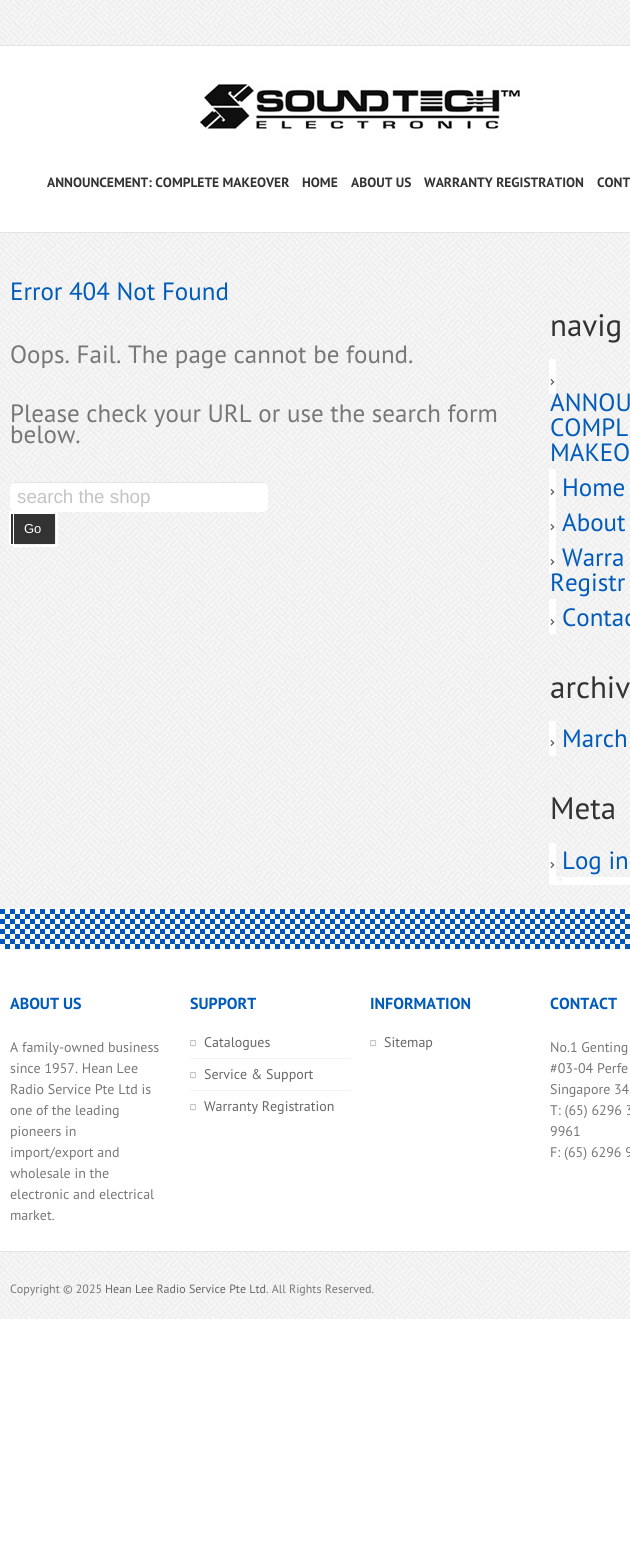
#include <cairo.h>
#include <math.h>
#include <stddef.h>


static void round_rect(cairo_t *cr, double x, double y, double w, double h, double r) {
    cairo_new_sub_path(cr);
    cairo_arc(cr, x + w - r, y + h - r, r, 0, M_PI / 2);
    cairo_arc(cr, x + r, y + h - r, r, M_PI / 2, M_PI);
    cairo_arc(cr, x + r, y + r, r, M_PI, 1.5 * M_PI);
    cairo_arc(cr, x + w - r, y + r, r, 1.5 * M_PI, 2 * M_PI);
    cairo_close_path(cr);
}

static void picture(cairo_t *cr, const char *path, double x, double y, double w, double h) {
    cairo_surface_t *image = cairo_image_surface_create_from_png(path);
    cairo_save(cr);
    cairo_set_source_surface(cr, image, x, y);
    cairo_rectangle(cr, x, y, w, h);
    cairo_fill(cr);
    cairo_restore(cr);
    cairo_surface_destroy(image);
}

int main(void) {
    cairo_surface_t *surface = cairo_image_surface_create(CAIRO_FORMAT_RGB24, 630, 1548);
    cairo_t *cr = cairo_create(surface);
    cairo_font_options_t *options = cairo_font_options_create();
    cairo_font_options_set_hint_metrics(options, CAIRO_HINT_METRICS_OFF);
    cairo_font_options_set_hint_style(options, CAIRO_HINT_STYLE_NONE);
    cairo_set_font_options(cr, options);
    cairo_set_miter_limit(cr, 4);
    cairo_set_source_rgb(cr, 1, 1, 1);
    cairo_paint(cr);
    picture(cr, "img1.png", 0, 0, 630, 45);
    cairo_set_source_rgb(cr, 0.894, 0.894, 0.894);
    cairo_rectangle(cr, 0, 45, 630, 1);
    cairo_fill(cr);
    picture(cr, "img2.png", 200, 84, 320, 45);
    cairo_select_font_face(cr, "PT Sans", CAIRO_FONT_SLANT_NORMAL, CAIRO_FONT_WEIGHT_BOLD);
    cairo_set_font_size(cr, 13.5);
    cairo_set_source_rgb(cr, 0.2, 0.2, 0.2);
    cairo_move_to(cr, 47, 187);
    cairo_show_text(cr, "ANNOUNCEMENT: COMPLETE MAKEOVER");
    cairo_move_to(cr, 302, 187);
    cairo_show_text(cr, "HOME");
    cairo_move_to(cr, 351, 187);
    cairo_show_text(cr, "ABOUT US");
    cairo_move_to(cr, 424, 187);
    cairo_show_text(cr, "WARRANTY REGISTRATION");
    cairo_move_to(cr, 597, 187);
    cairo_show_text(cr, "CONT");
    picture(cr, "img3.png", 0, 233, 630, 675);
    cairo_set_source_rgb(cr, 0.894, 0.894, 0.894);
    cairo_rectangle(cr, 0, 232, 630, 1);
    cairo_fill(cr);
    cairo_select_font_face(cr, "PT Sans", CAIRO_FONT_SLANT_NORMAL, CAIRO_FONT_WEIGHT_NORMAL);
    cairo_set_font_size(cr, 25);
    cairo_set_source_rgb(cr, 0, 0.357, 0.733);
    cairo_move_to(cr, 10, 300);
    cairo_show_text(cr, "Error 404 Not Found");
    cairo_set_source_rgb(cr, 0.467, 0.467, 0.467);
    cairo_move_to(cr, 10, 363);
    cairo_show_text(cr, "Oops. Fail. The page cannot be found.");
    cairo_move_to(cr, 10, 422);
    cairo_show_text(cr, "Please check your URL or use the search form");
    cairo_move_to(cr, 10, 443);
    cairo_show_text(cr, "below.");
    cairo_set_source_rgb(cr, 1, 1, 1);
    round_rect(cr, 10, 482, 258, 30, 5);
    cairo_fill(cr);
    cairo_set_source_rgb(cr, 0.898, 0.898, 0.898);
    cairo_new_path(cr);
    cairo_move_to(cr, 15, 483);
    cairo_line_to(cr, 263, 483);
    cairo_curve_to(cr, 266, 483, 268, 485, 268, 488);
    cairo_curve_to(cr, 268, 485, 266, 482, 263, 482);
    cairo_line_to(cr, 15, 482);
    cairo_curve_to(cr, 12, 482, 10, 485, 10, 488);
    cairo_curve_to(cr, 10, 485, 12, 483, 15, 483);
    cairo_close_path(cr);
    cairo_fill(cr);
    cairo_select_font_face(cr, "Liberation Sans", CAIRO_FONT_SLANT_NORMAL, CAIRO_FONT_WEIGHT_NORMAL);
    cairo_set_font_size(cr, 18.75);
    cairo_set_source_rgb(cr, 0.765, 0.765, 0.765);
    cairo_move_to(cr, 17, 503);
    cairo_show_text(cr, "search the shop");
    picture(cr, "img4.png", 9, 511, 49, 34);
    picture(cr, "img5.png", 13, 514, 45, 33);
    cairo_set_font_size(cr, 13);
    cairo_set_source_rgb(cr, 1, 1, 1);
    cairo_move_to(cr, 24, 533);
    cairo_show_text(cr, "Go");
    cairo_select_font_face(cr, "PT Sans", CAIRO_FONT_SLANT_NORMAL, CAIRO_FONT_WEIGHT_NORMAL);
    cairo_set_font_size(cr, 31);
    cairo_set_source_rgb(cr, 0.2, 0.2, 0.2);
    cairo_move_to(cr, 550, 336);
    cairo_show_text(cr, "navig");
    picture(cr, "img6.png", 549, 359, 7, 35);
    cairo_set_font_size(cr, 25);
    cairo_set_source_rgb(cr, 0, 0.357, 0.733);
    cairo_move_to(cr, 550, 411);
    cairo_show_text(cr, "ANNOU");
    cairo_move_to(cr, 550, 436);
    cairo_show_text(cr, "COMPL");
    cairo_move_to(cr, 550, 461);
    cairo_show_text(cr, "MAKEO");
    picture(cr, "img6.png", 549, 469, 7, 35);
    cairo_move_to(cr, 562, 496);
    cairo_show_text(cr, "Home");
    picture(cr, "img6.png", 549, 504, 7, 35);
    cairo_move_to(cr, 562, 531);
    cairo_show_text(cr, "About");
    picture(cr, "img6.png", 549, 539, 7, 35);
    cairo_move_to(cr, 562, 566);
    cairo_show_text(cr, "Warra");
    cairo_move_to(cr, 550, 591);
    cairo_show_text(cr, "Registr");
    picture(cr, "img6.png", 549, 599, 7, 35);
    cairo_move_to(cr, 562, 626);
    cairo_show_text(cr, "Contac");
    cairo_set_font_size(cr, 31);
    cairo_set_source_rgb(cr, 0.2, 0.2, 0.2);
    cairo_move_to(cr, 550, 698);
    cairo_show_text(cr, "archiv");
    picture(cr, "img7.png", 549, 721, 7, 35);
    cairo_set_font_size(cr, 25);
    cairo_set_source_rgb(cr, 0, 0.357, 0.733);
    cairo_move_to(cr, 562, 747);
    cairo_show_text(cr, "March");
    cairo_set_font_size(cr, 31);
    cairo_set_source_rgb(cr, 0.2, 0.2, 0.2);
    cairo_move_to(cr, 550, 819);
    cairo_show_text(cr, "Meta");
    picture(cr, "img8.png", 549, 843, 7, 34);
    cairo_set_font_size(cr, 25);
    cairo_set_source_rgb(cr, 0, 0.357, 0.733);
    cairo_move_to(cr, 562, 869);
    cairo_show_text(cr, "Log in");
    picture(cr, "img9.png", 549, 877, 81, 8);
    picture(cr, "img10.png", 0, 908, 630, 41);
    cairo_select_font_face(cr, "PT Sans", CAIRO_FONT_SLANT_NORMAL, CAIRO_FONT_WEIGHT_BOLD);
    cairo_set_font_size(cr, 16);
    cairo_move_to(cr, 10, 1009);
    cairo_show_text(cr, "ABOUT US");
    cairo_select_font_face(cr, "PT Sans", CAIRO_FONT_SLANT_NORMAL, CAIRO_FONT_WEIGHT_NORMAL);
    cairo_set_font_size(cr, 14);
    cairo_set_source_rgb(cr, 0.467, 0.467, 0.467);
    cairo_move_to(cr, 10, 1052);
    cairo_show_text(cr, "A family-owned business");
    cairo_move_to(cr, 10, 1073);
    cairo_show_text(cr, "since 1957. Hean Lee");
    cairo_move_to(cr, 10, 1094);
    cairo_show_text(cr, "Radio Service Pte Ltd is");
    cairo_move_to(cr, 10, 1115);
    cairo_show_text(cr, "one of the leading");
    cairo_move_to(cr, 10, 1136);
    cairo_show_text(cr, "pioneers in");
    cairo_move_to(cr, 10, 1157);
    cairo_show_text(cr, "import/export and");
    cairo_move_to(cr, 10, 1178);
    cairo_show_text(cr, "wholesale in the");
    cairo_move_to(cr, 10, 1199);
    cairo_show_text(cr, "electronic and electrical");
    cairo_move_to(cr, 10, 1220);
    cairo_show_text(cr, "market.");
    cairo_select_font_face(cr, "PT Sans", CAIRO_FONT_SLANT_NORMAL, CAIRO_FONT_WEIGHT_BOLD);
    cairo_set_font_size(cr, 16);
    cairo_set_source_rgb(cr, 0, 0.357, 0.733);
    cairo_move_to(cr, 190, 1009);
    cairo_show_text(cr, "SUPPORT");
    cairo_set_source_rgb(cr, 0.953, 0.953, 0.953);
    cairo_rectangle(cr, 190, 1058, 160, 1);
    cairo_fill(cr);
    picture(cr, "img11.png", 190, 1040, 7, 7);
    cairo_select_font_face(cr, "PT Sans", CAIRO_FONT_SLANT_NORMAL, CAIRO_FONT_WEIGHT_NORMAL);
    cairo_set_font_size(cr, 14);
    cairo_set_source_rgb(cr, 0.4, 0.4, 0.4);
    cairo_move_to(cr, 204, 1047);
    cairo_show_text(cr, "Catalogues");
    cairo_set_source_rgb(cr, 0.953, 0.953, 0.953);
    cairo_rectangle(cr, 190, 1090, 160, 1);
    cairo_fill(cr);
    picture(cr, "img11.png", 190, 1072, 7, 7);
    cairo_set_source_rgb(cr, 0.4, 0.4, 0.4);
    cairo_move_to(cr, 204, 1079);
    cairo_show_text(cr, "Service & Support");
    picture(cr, "img11.png", 190, 1104, 7, 7);
    cairo_move_to(cr, 204, 1111);
    cairo_show_text(cr, "Warranty Registration");
    cairo_select_font_face(cr, "PT Sans", CAIRO_FONT_SLANT_NORMAL, CAIRO_FONT_WEIGHT_BOLD);
    cairo_set_font_size(cr, 16);
    cairo_set_source_rgb(cr, 0, 0.357, 0.733);
    cairo_move_to(cr, 370, 1009);
    cairo_show_text(cr, "INFORMATION");
    picture(cr, "img11.png", 370, 1040, 7, 7);
    cairo_select_font_face(cr, "PT Sans", CAIRO_FONT_SLANT_NORMAL, CAIRO_FONT_WEIGHT_NORMAL);
    cairo_set_font_size(cr, 14);
    cairo_set_source_rgb(cr, 0.4, 0.4, 0.4);
    cairo_move_to(cr, 384, 1047);
    cairo_show_text(cr, "Sitemap");
    cairo_select_font_face(cr, "PT Sans", CAIRO_FONT_SLANT_NORMAL, CAIRO_FONT_WEIGHT_BOLD);
    cairo_set_font_size(cr, 16);
    cairo_set_source_rgb(cr, 0, 0.357, 0.733);
    cairo_move_to(cr, 550, 1009);
    cairo_show_text(cr, "CONTACT");
    cairo_select_font_face(cr, "PT Sans", CAIRO_FONT_SLANT_NORMAL, CAIRO_FONT_WEIGHT_NORMAL);
    cairo_set_font_size(cr, 14);
    cairo_set_source_rgb(cr, 0.467, 0.467, 0.467);
    cairo_move_to(cr, 550, 1052);
    cairo_show_text(cr, "No.1 Genting");
    cairo_move_to(cr, 550, 1073);
    cairo_show_text(cr, "#03-04 Perfe");
    cairo_move_to(cr, 550, 1094);
    cairo_show_text(cr, "Singapore 34");
    cairo_move_to(cr, 550, 1115);
    cairo_show_text(cr, "T: (65) 6296 3");
    cairo_move_to(cr, 550, 1136);
    cairo_show_text(cr, "9961");
    cairo_move_to(cr, 550, 1157);
    cairo_show_text(cr, "F: (65) 6296 9");
    picture(cr, "img12.png", 0, 1252, 630, 67);
    cairo_set_source_rgb(cr, 0.894, 0.894, 0.894);
    cairo_rectangle(cr, 0, 1251, 630, 1);
    cairo_fill(cr);
    cairo_set_font_size(cr, 12);
    cairo_set_source_rgb(cr, 0.467, 0.467, 0.467);
    cairo_move_to(cr, 10, 1293);
    cairo_show_text(cr, "Copyright © 2025");
    cairo_set_source_rgb(cr, 0.4, 0.4, 0.4);
    cairo_move_to(cr, 105, 1293);
    cairo_show_text(cr, "Hean Lee Radio Service Pte Ltd");
    cairo_set_source_rgb(cr, 0.467, 0.467, 0.467);
    cairo_move_to(cr, 266, 1293);
    cairo_show_text(cr, ". All Rights Reserved.");
    cairo_surface_write_to_png(surface, "page.png");
    cairo_font_options_destroy(options);
    cairo_destroy(cr);
    cairo_surface_destroy(surface);
    return 0;
}
